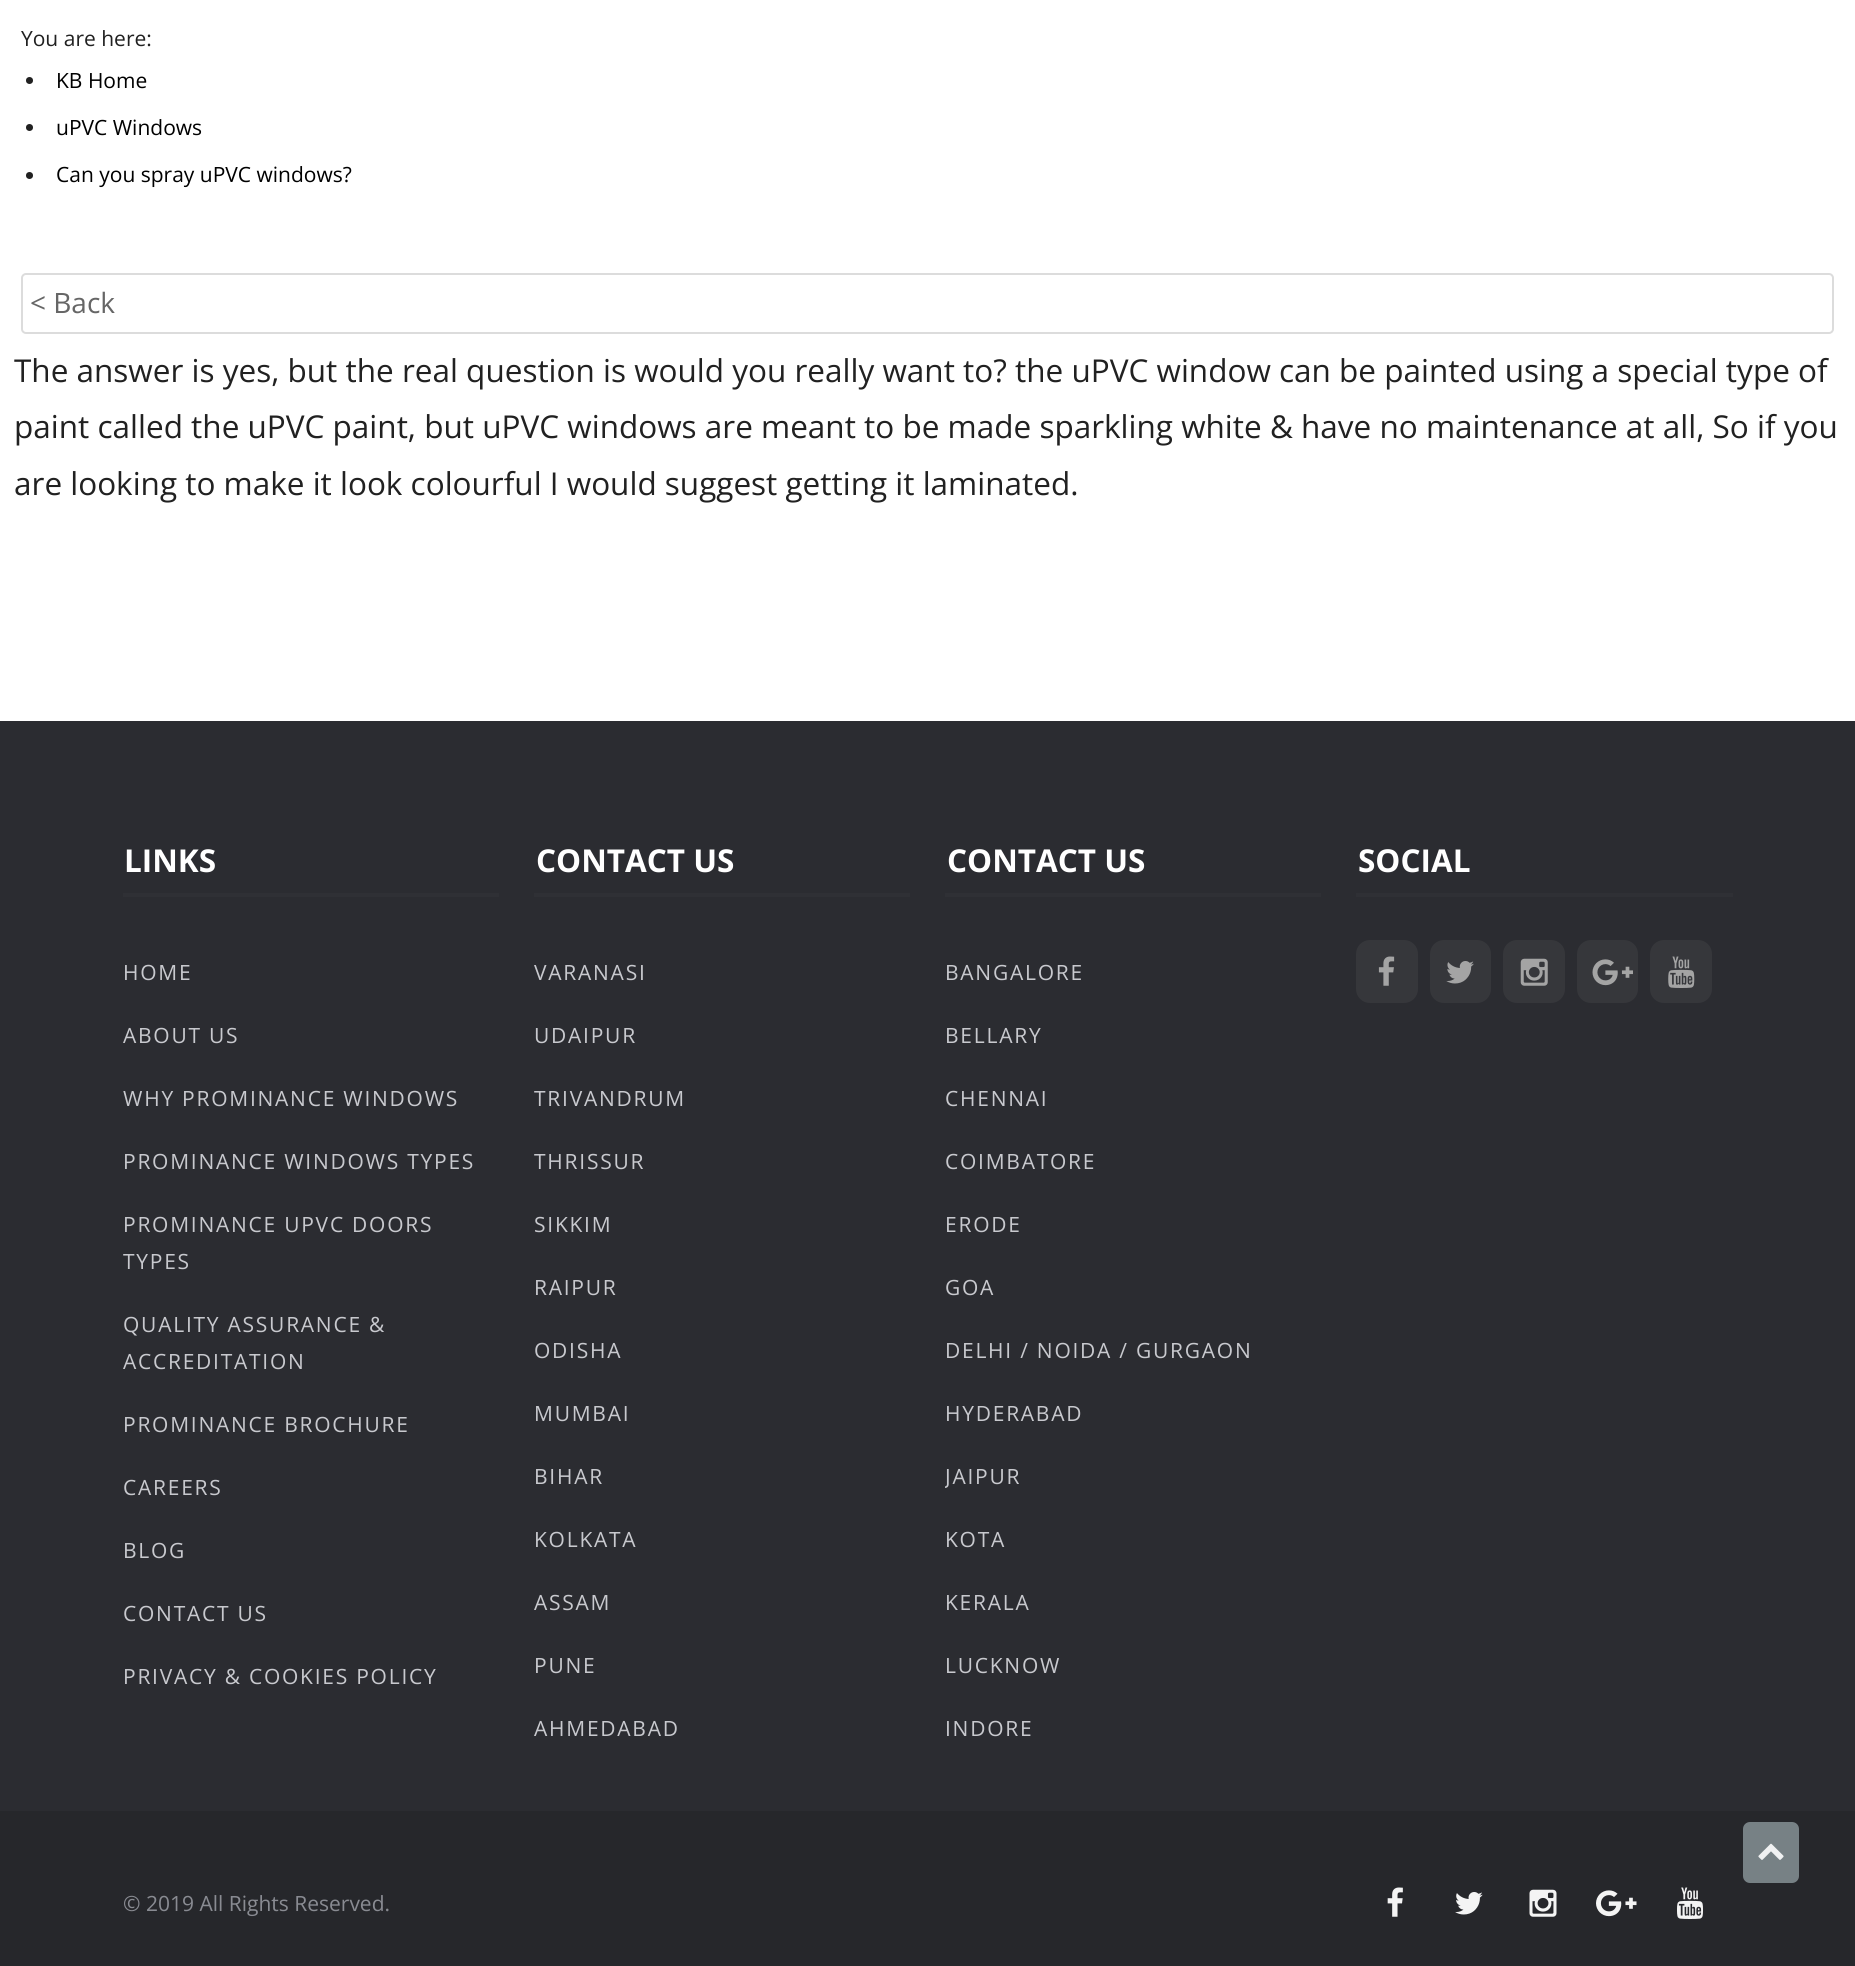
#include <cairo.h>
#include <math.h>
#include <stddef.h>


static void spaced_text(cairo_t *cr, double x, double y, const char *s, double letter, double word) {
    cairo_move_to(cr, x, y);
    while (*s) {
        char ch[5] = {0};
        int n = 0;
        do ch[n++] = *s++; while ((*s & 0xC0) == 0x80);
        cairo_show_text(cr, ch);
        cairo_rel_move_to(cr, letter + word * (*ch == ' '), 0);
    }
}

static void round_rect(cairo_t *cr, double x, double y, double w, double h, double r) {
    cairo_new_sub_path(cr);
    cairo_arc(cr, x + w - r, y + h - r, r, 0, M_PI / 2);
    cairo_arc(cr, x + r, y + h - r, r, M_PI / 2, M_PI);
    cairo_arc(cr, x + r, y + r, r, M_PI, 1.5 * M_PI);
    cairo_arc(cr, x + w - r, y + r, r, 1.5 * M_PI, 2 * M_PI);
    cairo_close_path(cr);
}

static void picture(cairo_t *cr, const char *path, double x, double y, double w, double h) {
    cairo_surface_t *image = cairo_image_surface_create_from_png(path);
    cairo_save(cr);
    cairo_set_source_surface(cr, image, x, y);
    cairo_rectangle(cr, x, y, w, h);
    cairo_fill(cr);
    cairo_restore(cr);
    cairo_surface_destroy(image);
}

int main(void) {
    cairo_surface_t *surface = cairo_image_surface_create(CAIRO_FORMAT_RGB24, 1855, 1966);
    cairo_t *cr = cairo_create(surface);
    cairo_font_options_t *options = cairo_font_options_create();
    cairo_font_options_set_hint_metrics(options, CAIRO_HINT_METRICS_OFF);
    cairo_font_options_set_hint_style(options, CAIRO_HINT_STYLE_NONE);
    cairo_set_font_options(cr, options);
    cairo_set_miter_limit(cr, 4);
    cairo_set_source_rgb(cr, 1, 1, 1);
    cairo_paint(cr);
    cairo_select_font_face(cr, "Open Sans", CAIRO_FONT_SLANT_NORMAL, CAIRO_FONT_WEIGHT_NORMAL);
    cairo_set_font_size(cr, 21);
    cairo_set_source_rgb(cr, 0.129, 0.129, 0.129);
    cairo_move_to(cr, 21, 46);
    cairo_show_text(cr, "You are here:");
    cairo_new_path(cr);
    cairo_arc(cr, 29.5, 80.5, 3.5, 0, 2 * M_PI);
    cairo_fill(cr);
    cairo_set_source_rgb(cr, 0, 0, 0);
    cairo_move_to(cr, 56, 88);
    cairo_show_text(cr, "KB Home");
    cairo_set_source_rgb(cr, 0.129, 0.129, 0.129);
    cairo_new_path(cr);
    cairo_arc(cr, 29.5, 127.5, 3.5, 0, 2 * M_PI);
    cairo_fill(cr);
    cairo_set_source_rgb(cr, 0, 0, 0);
    cairo_move_to(cr, 56, 135);
    cairo_show_text(cr, "uPVC Windows");
    cairo_set_source_rgb(cr, 0.129, 0.129, 0.129);
    cairo_new_path(cr);
    cairo_arc(cr, 29.5, 175.5, 3.5, 0, 2 * M_PI);
    cairo_fill(cr);
    cairo_set_source_rgb(cr, 0, 0, 0);
    cairo_move_to(cr, 56, 182);
    cairo_show_text(cr, "Can you spray uPVC windows?");
    round_rect(cr, 22, 274, 1811, 59, 4);
    cairo_set_source_rgb(cr, 0.863, 0.863, 0.863);
    cairo_stroke(cr);
    cairo_set_font_size(cr, 28);
    cairo_set_source_rgb(cr, 0.4, 0.4, 0.4);
    cairo_move_to(cr, 30, 313);
    cairo_show_text(cr, "< Back");
    cairo_set_font_size(cr, 31.5);
    cairo_set_source_rgb(cr, 0.129, 0.129, 0.129);
    cairo_move_to(cr, 14, 382);
    cairo_show_text(cr, "The answer is yes, but the real question is would you really want to? the uPVC window can be painted using a special type of");
    cairo_move_to(cr, 14, 438);
    cairo_show_text(cr, "paint called the uPVC paint, but uPVC windows are meant to be made sparkling white & have no maintenance at all, So if you");
    cairo_move_to(cr, 14, 495);
    cairo_show_text(cr, "are looking to make it look colourful I would suggest getting it laminated.");
    cairo_set_source_rgb(cr, 0.169, 0.173, 0.192);
    cairo_rectangle(cr, 0, 721, 1855, 1090);
    cairo_fill(cr);
    cairo_set_source_rgb(cr, 0.184, 0.188, 0.208);
    cairo_rectangle(cr, 123, 893, 376, 4);
    cairo_fill(cr);
    cairo_select_font_face(cr, "Open Sans", CAIRO_FONT_SLANT_NORMAL, CAIRO_FONT_WEIGHT_BOLD);
    cairo_set_source_rgb(cr, 1, 1, 1);
    cairo_move_to(cr, 124, 872);
    cairo_show_text(cr, "LINKS");
    cairo_select_font_face(cr, "Open Sans", CAIRO_FONT_SLANT_NORMAL, CAIRO_FONT_WEIGHT_NORMAL);
    cairo_set_font_size(cr, 21);
    cairo_set_source_rgb(cr, 0.784, 0.788, 0.808);
    spaced_text(cr, 123, 980, "HOME", 1.75, 0);
    spaced_text(cr, 123, 1043, "ABOUT US", 1.75, 0);
    spaced_text(cr, 123, 1106, "WHY PROMINANCE WINDOWS", 1.75, 0);
    spaced_text(cr, 123, 1169, "PROMINANCE WINDOWS TYPES", 1.75, 0);
    spaced_text(cr, 123, 1232, "PROMINANCE UPVC DOORS", 1.75, 0);
    spaced_text(cr, 123, 1269, "TYPES", 1.75, 0);
    spaced_text(cr, 123, 1332, "QUALITY ASSURANCE &", 1.75, 0);
    spaced_text(cr, 123, 1369, "ACCREDITATION", 1.75, 0);
    spaced_text(cr, 123, 1432, "PROMINANCE BROCHURE", 1.75, 0);
    spaced_text(cr, 123, 1495, "CAREERS", 1.75, 0);
    spaced_text(cr, 123, 1558, "BLOG", 1.75, 0);
    spaced_text(cr, 123, 1621, "CONTACT US", 1.75, 0);
    spaced_text(cr, 123, 1684, "PRIVACY & COOKIES POLICY", 1.75, 0);
    cairo_set_source_rgb(cr, 0.184, 0.188, 0.208);
    cairo_rectangle(cr, 534, 893, 376, 4);
    cairo_fill(cr);
    cairo_select_font_face(cr, "Open Sans", CAIRO_FONT_SLANT_NORMAL, CAIRO_FONT_WEIGHT_BOLD);
    cairo_set_font_size(cr, 31.5);
    cairo_set_source_rgb(cr, 1, 1, 1);
    cairo_move_to(cr, 536, 872);
    cairo_show_text(cr, "CONTACT US");
    cairo_select_font_face(cr, "Open Sans", CAIRO_FONT_SLANT_NORMAL, CAIRO_FONT_WEIGHT_NORMAL);
    cairo_set_font_size(cr, 21);
    cairo_set_source_rgb(cr, 0.784, 0.788, 0.808);
    spaced_text(cr, 534, 980, "VARANASI", 1.75, 0);
    spaced_text(cr, 534, 1043, "UDAIPUR", 1.75, 0);
    spaced_text(cr, 534, 1106, "TRIVANDRUM", 1.75, 0);
    spaced_text(cr, 534, 1169, "THRISSUR", 1.75, 0);
    spaced_text(cr, 534, 1232, "SIKKIM", 1.75, 0);
    spaced_text(cr, 534, 1295, "RAIPUR", 1.75, 0);
    spaced_text(cr, 534, 1358, "ODISHA", 1.75, 0);
    spaced_text(cr, 534, 1421, "MUMBAI", 1.75, 0);
    spaced_text(cr, 534, 1484, "BIHAR", 1.75, 0);
    spaced_text(cr, 534, 1547, "KOLKATA", 1.75, 0);
    spaced_text(cr, 534, 1610, "ASSAM", 1.75, 0);
    spaced_text(cr, 534, 1673, "PUNE", 1.75, 0);
    spaced_text(cr, 534, 1736, "AHMEDABAD", 1.75, 0);
    cairo_set_source_rgb(cr, 0.184, 0.188, 0.208);
    cairo_rectangle(cr, 945, 893, 376, 4);
    cairo_fill(cr);
    cairo_select_font_face(cr, "Open Sans", CAIRO_FONT_SLANT_NORMAL, CAIRO_FONT_WEIGHT_BOLD);
    cairo_set_font_size(cr, 31.5);
    cairo_set_source_rgb(cr, 1, 1, 1);
    cairo_move_to(cr, 947, 872);
    cairo_show_text(cr, "CONTACT US");
    cairo_select_font_face(cr, "Open Sans", CAIRO_FONT_SLANT_NORMAL, CAIRO_FONT_WEIGHT_NORMAL);
    cairo_set_font_size(cr, 21);
    cairo_set_source_rgb(cr, 0.784, 0.788, 0.808);
    spaced_text(cr, 945, 980, "BANGALORE", 1.75, 0);
    spaced_text(cr, 945, 1043, "BELLARY", 1.75, 0);
    spaced_text(cr, 945, 1106, "CHENNAI", 1.75, 0);
    spaced_text(cr, 945, 1169, "COIMBATORE", 1.75, 0);
    spaced_text(cr, 945, 1232, "ERODE", 1.75, 0);
    spaced_text(cr, 945, 1295, "GOA", 1.75, 0);
    spaced_text(cr, 945, 1358, "DELHI / NOIDA / GURGAON", 1.75, 0);
    spaced_text(cr, 945, 1421, "HYDERABAD", 1.75, 0);
    cairo_save(cr);
    cairo_rectangle(cr, 945, 844, 376, 932);
    cairo_clip(cr);
    spaced_text(cr, 945, 1484, "JAIPUR", 1.75, 0);
    cairo_restore(cr);
    spaced_text(cr, 945, 1547, "KOTA", 1.75, 0);
    spaced_text(cr, 945, 1610, "KERALA", 1.75, 0);
    spaced_text(cr, 945, 1673, "LUCKNOW", 1.75, 0);
    spaced_text(cr, 945, 1736, "INDORE", 1.75, 0);
    cairo_set_source_rgb(cr, 0.184, 0.188, 0.208);
    cairo_rectangle(cr, 1356, 893, 377, 4);
    cairo_fill(cr);
    cairo_select_font_face(cr, "Open Sans", CAIRO_FONT_SLANT_NORMAL, CAIRO_FONT_WEIGHT_BOLD);
    cairo_set_font_size(cr, 31.5);
    cairo_set_source_rgb(cr, 1, 1, 1);
    cairo_move_to(cr, 1358, 872);
    cairo_show_text(cr, "SOCIAL");
    cairo_set_source_rgb(cr, 0.212, 0.216, 0.231);
    round_rect(cr, 1356, 940, 62, 63, 14);
    cairo_fill(cr);
    picture(cr, "img1.png", 1378, 956, 17, 30);
    round_rect(cr, 1430, 940, 61, 63, 14);
    cairo_fill(cr);
    picture(cr, "img2.png", 1446, 961, 28, 23);
    round_rect(cr, 1503, 940, 62, 63, 14);
    cairo_fill(cr);
    picture(cr, "img3.png", 1520, 958, 28, 28);
    round_rect(cr, 1577, 940, 61, 63, 14);
    cairo_fill(cr);
    picture(cr, "img4.png", 1592, 959, 41, 27);
    round_rect(cr, 1650, 940, 62, 63, 14);
    cairo_fill(cr);
    picture(cr, "img5.png", 1668, 956, 27, 32);
    cairo_set_source_rgb(cr, 0.149, 0.153, 0.169);
    cairo_rectangle(cr, 0, 1811, 1855, 155);
    cairo_fill(cr);
    cairo_select_font_face(cr, "Open Sans", CAIRO_FONT_SLANT_NORMAL, CAIRO_FONT_WEIGHT_NORMAL);
    cairo_set_font_size(cr, 21);
    cairo_set_source_rgb(cr, 0.537, 0.545, 0.573);
    cairo_move_to(cr, 123, 1911);
    cairo_show_text(cr, "© 2019 All Rights Reserved.");
    picture(cr, "img6.png", 1387, 1887, 16, 30);
    picture(cr, "img7.png", 1455, 1892, 28, 23);
    picture(cr, "img8.png", 1529, 1889, 28, 28);
    picture(cr, "img9.png", 1596, 1890, 41, 27);
    picture(cr, "img10.png", 1677, 1887, 26, 32);
    cairo_set_source_rgb(cr, 0.467, 0.506, 0.522);
    round_rect(cr, 1743, 1822, 56, 61, 7);
    cairo_fill(cr);
    picture(cr, "img11.png", 1758, 1843, 26, 17);
    cairo_surface_write_to_png(surface, "page.png");
    cairo_font_options_destroy(options);
    cairo_destroy(cr);
    cairo_surface_destroy(surface);
    return 0;
}
